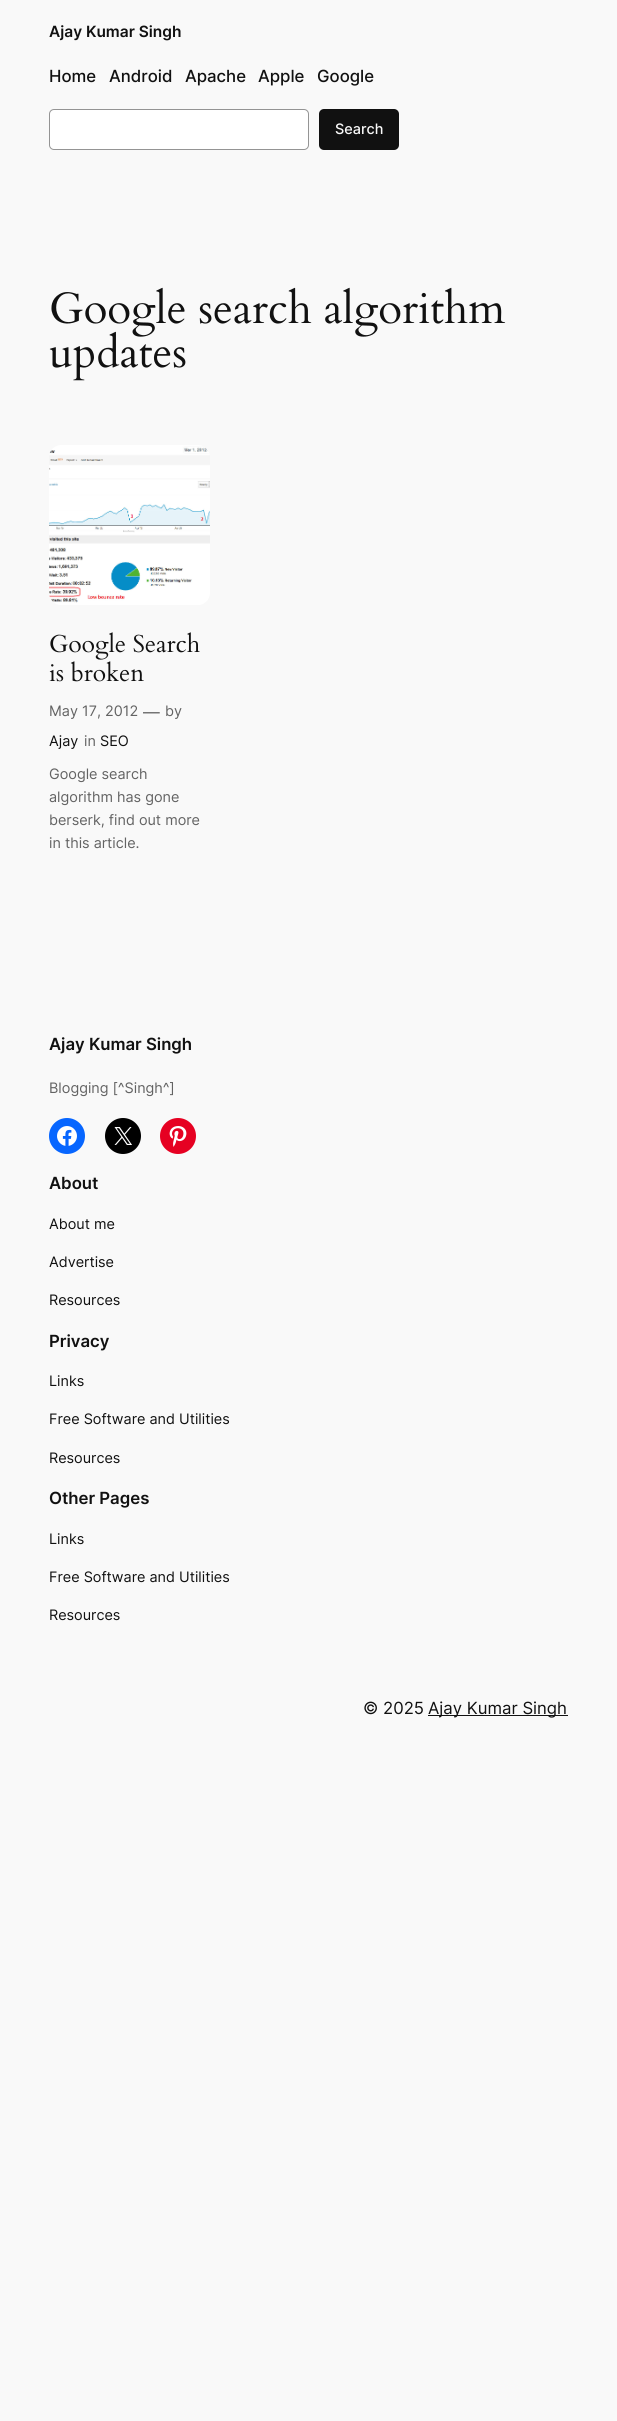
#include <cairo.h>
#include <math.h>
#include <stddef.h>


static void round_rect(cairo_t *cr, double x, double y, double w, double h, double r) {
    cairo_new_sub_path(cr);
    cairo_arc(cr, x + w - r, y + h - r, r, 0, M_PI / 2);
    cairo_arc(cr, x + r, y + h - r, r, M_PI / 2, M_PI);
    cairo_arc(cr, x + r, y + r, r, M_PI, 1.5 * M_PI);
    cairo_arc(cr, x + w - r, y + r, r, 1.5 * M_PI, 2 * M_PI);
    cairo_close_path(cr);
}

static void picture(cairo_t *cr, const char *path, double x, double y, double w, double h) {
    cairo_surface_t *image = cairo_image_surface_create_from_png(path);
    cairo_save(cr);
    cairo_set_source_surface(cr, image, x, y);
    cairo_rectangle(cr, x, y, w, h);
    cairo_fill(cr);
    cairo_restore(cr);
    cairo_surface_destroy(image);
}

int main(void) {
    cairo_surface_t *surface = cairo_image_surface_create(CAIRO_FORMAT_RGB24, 617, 2421);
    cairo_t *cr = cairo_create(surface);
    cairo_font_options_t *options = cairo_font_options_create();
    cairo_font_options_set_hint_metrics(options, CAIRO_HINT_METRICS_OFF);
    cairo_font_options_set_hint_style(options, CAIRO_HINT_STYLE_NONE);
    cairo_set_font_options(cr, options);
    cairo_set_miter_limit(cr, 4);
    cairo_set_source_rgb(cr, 0.976, 0.976, 0.976);
    cairo_paint(cr);
    cairo_select_font_face(cr, "Inter SemiBold", CAIRO_FONT_SLANT_NORMAL, CAIRO_FONT_WEIGHT_NORMAL);
    cairo_set_font_size(cr, 15.5);
    cairo_set_source_rgb(cr, 0.067, 0.067, 0.067);
    cairo_move_to(cr, 49, 37);
    cairo_show_text(cr, "Ajay Kumar Singh");
    cairo_select_font_face(cr, "Inter Medium", CAIRO_FONT_SLANT_NORMAL, CAIRO_FONT_WEIGHT_NORMAL);
    cairo_set_font_size(cr, 16.75);
    cairo_move_to(cr, 49, 82);
    cairo_show_text(cr, "Home");
    cairo_move_to(cr, 109, 82);
    cairo_show_text(cr, "Android");
    cairo_move_to(cr, 185, 82);
    cairo_show_text(cr, "Apache");
    cairo_move_to(cr, 258, 82);
    cairo_show_text(cr, "Apple");
    cairo_move_to(cr, 317, 82);
    cairo_show_text(cr, "Google");
    cairo_set_source_rgb(cr, 1, 1, 1);
    round_rect(cr, 49.5, 109.5, 259, 40, 4.5);
    cairo_fill_preserve(cr);
    cairo_set_source_rgb(cr, 0.58, 0.58, 0.58);
    cairo_set_line_width(cr, 1);
    cairo_stroke(cr);
    cairo_set_source_rgb(cr, 0.067, 0.067, 0.067);
    round_rect(cr, 319, 109, 80, 41, 5);
    cairo_fill(cr);
    cairo_set_font_size(cr, 14.4);
    cairo_set_source_rgb(cr, 0.976, 0.976, 0.976);
    cairo_move_to(cr, 335, 134);
    cairo_show_text(cr, "Search");
    picture(cr, "img1.png", 51, 287, 455, 50);
    picture(cr, "img2.png", 49, 331, 137, 50);
    picture(cr, "img3.png", 49, 445, 161, 160);
    picture(cr, "img4.png", 50, 632, 150, 28);
    picture(cr, "img5.png", 49, 661, 95, 21);
    cairo_select_font_face(cr, "Inter", CAIRO_FONT_SLANT_NORMAL, CAIRO_FONT_WEIGHT_NORMAL);
    cairo_set_source_rgb(cr, 0.388, 0.388, 0.388);
    cairo_move_to(cr, 49, 716);
    cairo_show_text(cr, "May 17, 2012");
    cairo_set_font_size(cr, 16.75);
    cairo_move_to(cr, 143, 718);
    cairo_show_text(cr, "—");
    cairo_set_font_size(cr, 14.4);
    cairo_move_to(cr, 165, 716);
    cairo_show_text(cr, "by");
    cairo_set_source_rgb(cr, 0.067, 0.067, 0.067);
    cairo_move_to(cr, 49, 746);
    cairo_show_text(cr, "Ajay");
    cairo_set_source_rgb(cr, 0.388, 0.388, 0.388);
    cairo_move_to(cr, 84, 746);
    cairo_show_text(cr, "in");
    cairo_set_source_rgb(cr, 0.067, 0.067, 0.067);
    cairo_move_to(cr, 100, 746);
    cairo_show_text(cr, "SEO");
    cairo_set_source_rgb(cr, 0.388, 0.388, 0.388);
    cairo_move_to(cr, 49, 779);
    cairo_show_text(cr, "Google search");
    cairo_move_to(cr, 49, 802);
    cairo_show_text(cr, "algorithm has gone");
    cairo_move_to(cr, 49, 825);
    cairo_show_text(cr, "berserk, find out more");
    cairo_move_to(cr, 49, 848);
    cairo_show_text(cr, "in this article.");
    cairo_select_font_face(cr, "Inter SemiBold", CAIRO_FONT_SLANT_NORMAL, CAIRO_FONT_WEIGHT_NORMAL);
    cairo_set_font_size(cr, 16.75);
    cairo_set_source_rgb(cr, 0.067, 0.067, 0.067);
    cairo_move_to(cr, 49, 1050);
    cairo_show_text(cr, "Ajay Kumar Singh");
    cairo_select_font_face(cr, "Inter", CAIRO_FONT_SLANT_NORMAL, CAIRO_FONT_WEIGHT_NORMAL);
    cairo_set_font_size(cr, 14.4);
    cairo_set_source_rgb(cr, 0.388, 0.388, 0.388);
    cairo_move_to(cr, 49, 1093);
    cairo_show_text(cr, "Blogging [^Singh^]");
    cairo_set_source_rgb(cr, 0.031, 0.4, 1);
    cairo_new_path(cr);
    cairo_arc(cr, 67, 1136, 18, 0, 2 * M_PI);
    cairo_fill(cr);
    picture(cr, "img6.png", 57, 1126, 20, 20);
    cairo_set_source_rgb(cr, 0, 0, 0);
    cairo_arc(cr, 123, 1136, 18, 0, 2 * M_PI);
    cairo_fill(cr);
    picture(cr, "img7.png", 114, 1127, 18, 18);
    cairo_set_source_rgb(cr, 0.902, 0.004, 0.133);
    cairo_arc(cr, 178, 1136, 18, 0, 2 * M_PI);
    cairo_fill(cr);
    picture(cr, "img8.png", 169, 1126, 18, 21);
    cairo_select_font_face(cr, "Inter SemiBold", CAIRO_FONT_SLANT_NORMAL, CAIRO_FONT_WEIGHT_NORMAL);
    cairo_set_font_size(cr, 16.75);
    cairo_set_source_rgb(cr, 0.067, 0.067, 0.067);
    cairo_move_to(cr, 49, 1189);
    cairo_show_text(cr, "About");
    cairo_select_font_face(cr, "Inter", CAIRO_FONT_SLANT_NORMAL, CAIRO_FONT_WEIGHT_NORMAL);
    cairo_set_font_size(cr, 14.4);
    cairo_move_to(cr, 49, 1229);
    cairo_show_text(cr, "About me");
    cairo_move_to(cr, 49, 1267);
    cairo_show_text(cr, "Advertise");
    cairo_move_to(cr, 49, 1305);
    cairo_show_text(cr, "Resources");
    cairo_select_font_face(cr, "Inter SemiBold", CAIRO_FONT_SLANT_NORMAL, CAIRO_FONT_WEIGHT_NORMAL);
    cairo_set_font_size(cr, 16.75);
    cairo_move_to(cr, 49, 1347);
    cairo_show_text(cr, "Privacy");
    cairo_select_font_face(cr, "Inter", CAIRO_FONT_SLANT_NORMAL, CAIRO_FONT_WEIGHT_NORMAL);
    cairo_set_font_size(cr, 14.4);
    cairo_move_to(cr, 49, 1386);
    cairo_show_text(cr, "Links");
    cairo_move_to(cr, 49, 1424);
    cairo_show_text(cr, "Free Software and Utilities");
    cairo_move_to(cr, 49, 1463);
    cairo_show_text(cr, "Resources");
    cairo_select_font_face(cr, "Inter SemiBold", CAIRO_FONT_SLANT_NORMAL, CAIRO_FONT_WEIGHT_NORMAL);
    cairo_set_font_size(cr, 16.75);
    cairo_move_to(cr, 49, 1504);
    cairo_show_text(cr, "Other Pages");
    cairo_select_font_face(cr, "Inter", CAIRO_FONT_SLANT_NORMAL, CAIRO_FONT_WEIGHT_NORMAL);
    cairo_set_font_size(cr, 14.4);
    cairo_move_to(cr, 49, 1544);
    cairo_show_text(cr, "Links");
    cairo_move_to(cr, 49, 1582);
    cairo_show_text(cr, "Free Software and Utilities");
    cairo_move_to(cr, 49, 1620);
    cairo_show_text(cr, "Resources");
    cairo_set_font_size(cr, 16.75);
    cairo_move_to(cr, 363, 1714);
    cairo_show_text(cr, "© 2025");
    cairo_rectangle(cr, 428, 1715, 140, 1);
    cairo_fill(cr);
    cairo_move_to(cr, 428, 1714);
    cairo_show_text(cr, "Ajay Kumar Singh");
    cairo_surface_write_to_png(surface, "page.png");
    cairo_font_options_destroy(options);
    cairo_destroy(cr);
    cairo_surface_destroy(surface);
    return 0;
}
